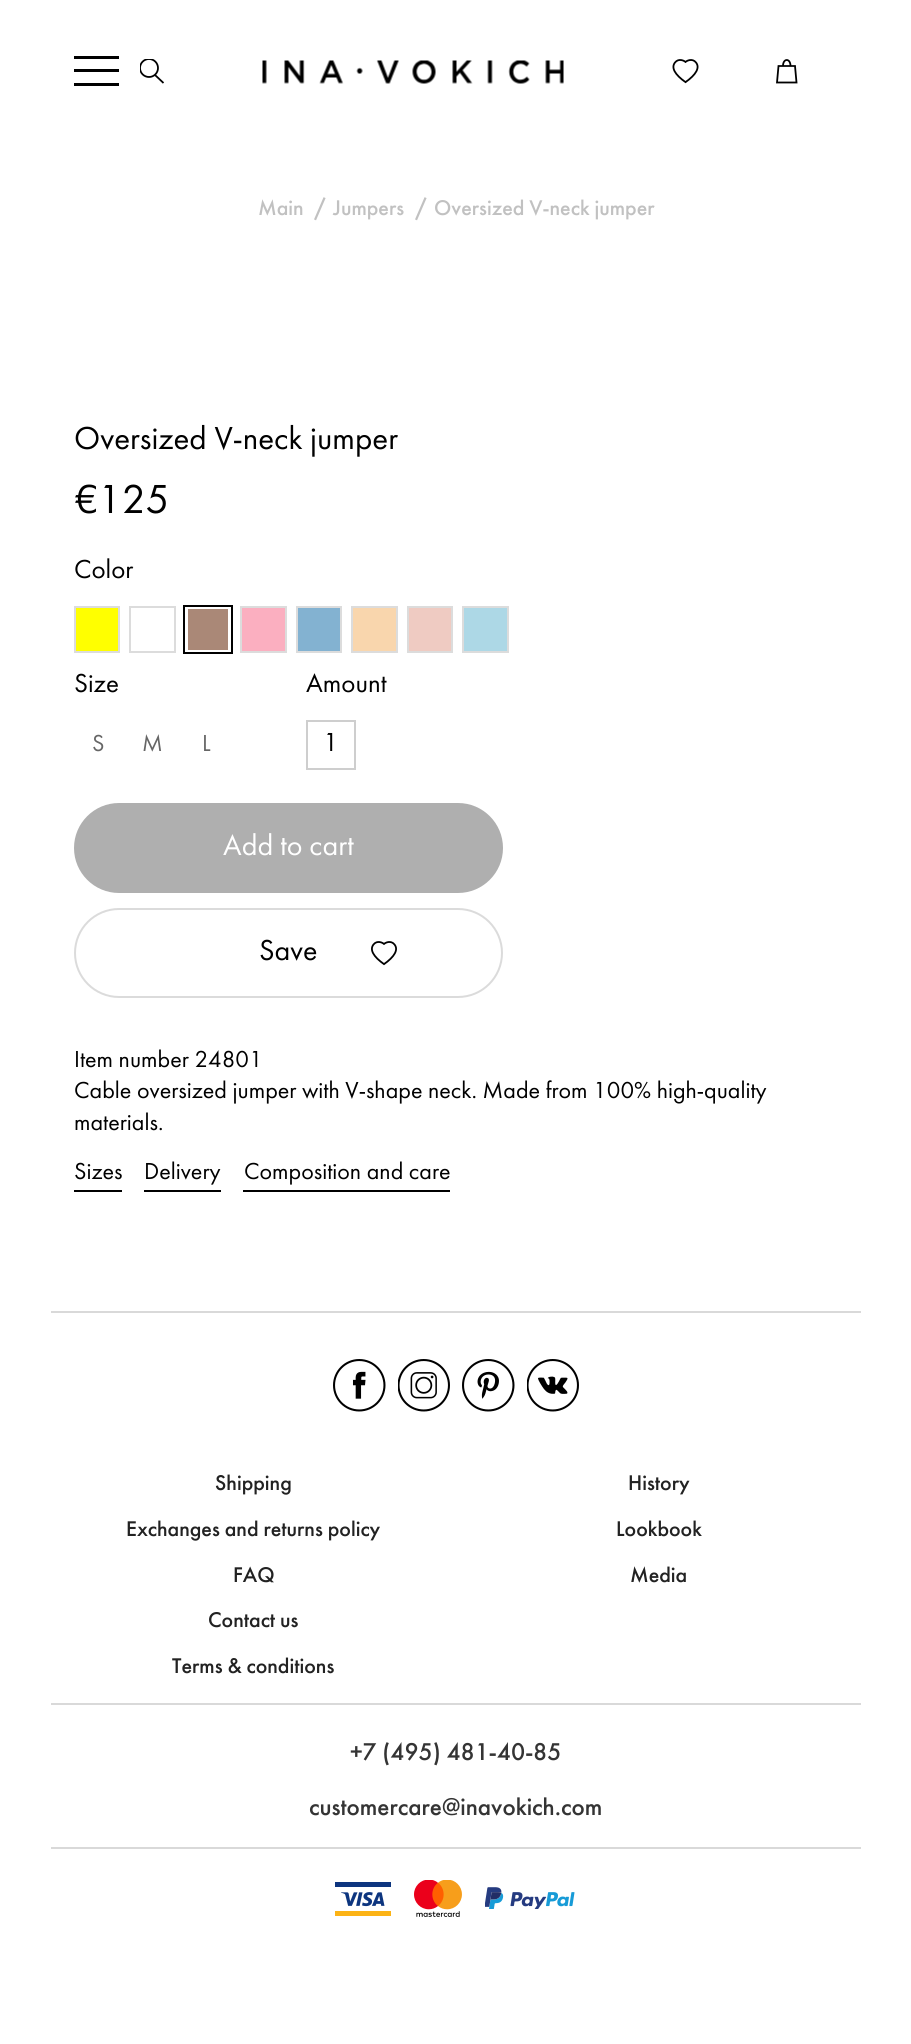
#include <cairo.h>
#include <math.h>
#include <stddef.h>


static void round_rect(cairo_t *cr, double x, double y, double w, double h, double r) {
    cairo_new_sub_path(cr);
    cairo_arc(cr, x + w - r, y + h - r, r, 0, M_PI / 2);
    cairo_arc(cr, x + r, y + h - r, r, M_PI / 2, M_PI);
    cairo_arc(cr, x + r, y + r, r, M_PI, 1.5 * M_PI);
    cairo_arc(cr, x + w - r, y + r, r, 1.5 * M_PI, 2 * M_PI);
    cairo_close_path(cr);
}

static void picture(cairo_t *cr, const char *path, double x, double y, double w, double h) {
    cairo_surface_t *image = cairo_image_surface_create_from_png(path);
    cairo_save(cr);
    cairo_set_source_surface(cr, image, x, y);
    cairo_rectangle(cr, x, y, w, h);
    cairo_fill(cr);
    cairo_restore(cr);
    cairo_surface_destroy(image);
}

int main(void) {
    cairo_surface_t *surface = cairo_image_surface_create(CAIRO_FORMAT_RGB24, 911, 2044);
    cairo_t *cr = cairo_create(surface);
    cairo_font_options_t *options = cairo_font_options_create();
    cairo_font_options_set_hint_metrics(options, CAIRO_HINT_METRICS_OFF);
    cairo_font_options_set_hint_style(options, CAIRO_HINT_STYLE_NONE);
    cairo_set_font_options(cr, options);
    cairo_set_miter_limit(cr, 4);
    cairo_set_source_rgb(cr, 1, 1, 1);
    cairo_paint(cr);
    cairo_set_source_rgb(cr, 0, 0, 0);
    cairo_rectangle(cr, 74, 69, 45, 3);
    cairo_fill(cr);
    cairo_rectangle(cr, 74, 56, 45, 3);
    cairo_fill(cr);
    cairo_rectangle(cr, 74, 83, 45, 3);
    cairo_fill(cr);
    cairo_save(cr);
    cairo_rectangle(cr, 140, 59, 25, 25);
    cairo_clip(cr);
    cairo_arc(cr, 149, 68, 9, 0, 2 * M_PI);
    cairo_set_line_width(cr, 1.8);
    cairo_stroke(cr);
    cairo_restore(cr);
    cairo_new_path(cr);
    cairo_move_to(cr, 155, 75);
    cairo_line_to(cr, 163.5, 83);
    cairo_set_line_width(cr, 1.8);
    cairo_stroke(cr);
    picture(cr, "img1.png", 262, 60, 302, 24);
    cairo_new_path(cr);
    cairo_move_to(cr, 685, 62.5);
    cairo_curve_to(cr, 686.5, 60.5, 692.5, 58, 696, 62.5);
    cairo_curve_to(cr, 700, 67.5, 696.5, 74.5, 685, 82.5);
    cairo_move_to(cr, 686, 62.5);
    cairo_curve_to(cr, 684.5, 60.5, 678.5, 58, 675, 62.5);
    cairo_curve_to(cr, 671, 67.5, 674.5, 74.5, 686, 82.5);
    cairo_stroke(cr);
    cairo_new_path(cr);
    cairo_move_to(cr, 796.5, 82.5);
    cairo_line_to(cr, 777, 82.5);
    cairo_line_to(cr, 778.5, 66);
    cairo_line_to(cr, 795, 66);
    cairo_close_path(cr);
    cairo_move_to(cr, 783, 66);
    cairo_curve_to(cr, 783, 58, 790.5, 58, 790.5, 66);
    cairo_stroke(cr);
    cairo_select_font_face(cr, "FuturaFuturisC", CAIRO_FONT_SLANT_NORMAL, CAIRO_FONT_WEIGHT_NORMAL);
    cairo_set_font_size(cr, 21);
    cairo_set_source_rgb(cr, 0.757, 0.757, 0.757);
    cairo_move_to(cr, 258, 215);
    cairo_show_text(cr, "Main");
    cairo_set_font_size(cr, 24);
    cairo_move_to(cr, 314, 215);
    cairo_show_text(cr, "/");
    cairo_set_font_size(cr, 21);
    cairo_move_to(cr, 333, 215);
    cairo_show_text(cr, "Jumpers");
    cairo_set_font_size(cr, 24);
    cairo_move_to(cr, 415, 215);
    cairo_show_text(cr, "/");
    cairo_set_font_size(cr, 21);
    cairo_move_to(cr, 434, 215);
    cairo_show_text(cr, "Oversized V-neck jumper");
    cairo_select_font_face(cr, "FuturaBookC", CAIRO_FONT_SLANT_NORMAL, CAIRO_FONT_WEIGHT_NORMAL);
    cairo_set_font_size(cr, 33);
    cairo_set_source_rgb(cr, 0, 0, 0);
    cairo_move_to(cr, 74, 449);
    cairo_show_text(cr, "Oversized V-neck jumper");
    cairo_set_font_size(cr, 42);
    cairo_move_to(cr, 74, 513);
    cairo_show_text(cr, "€125");
    cairo_set_font_size(cr, 27);
    cairo_move_to(cr, 74, 578);
    cairo_show_text(cr, "Color");
    cairo_set_source_rgb(cr, 1, 1, 0);
    cairo_rectangle(cr, 75, 607, 44, 45);
    cairo_fill_preserve(cr);
    cairo_set_source_rgb(cr, 0.863, 0.863, 0.863);
    cairo_set_line_width(cr, 2);
    cairo_stroke(cr);
    cairo_rectangle(cr, 130, 607, 45, 45);
    cairo_stroke(cr);
    cairo_set_source_rgb(cr, 0.667, 0.533, 0.467);
    cairo_rectangle(cr, 188, 609, 40, 41);
    cairo_fill(cr);
    cairo_rectangle(cr, 184, 606, 48, 47);
    cairo_set_source_rgb(cr, 0, 0, 0);
    cairo_stroke(cr);
    cairo_set_source_rgb(cr, 0.984, 0.686, 0.753);
    cairo_rectangle(cr, 241, 607, 45, 45);
    cairo_fill_preserve(cr);
    cairo_set_source_rgb(cr, 0.863, 0.863, 0.863);
    cairo_stroke(cr);
    cairo_set_source_rgb(cr, 0.514, 0.698, 0.82);
    cairo_rectangle(cr, 297, 607, 44, 45);
    cairo_fill_preserve(cr);
    cairo_set_source_rgb(cr, 0.863, 0.863, 0.863);
    cairo_stroke(cr);
    cairo_set_source_rgb(cr, 0.976, 0.839, 0.678);
    cairo_rectangle(cr, 352, 607, 45, 45);
    cairo_fill_preserve(cr);
    cairo_set_source_rgb(cr, 0.863, 0.863, 0.863);
    cairo_stroke(cr);
    cairo_set_source_rgb(cr, 0.937, 0.796, 0.761);
    cairo_rectangle(cr, 408, 607, 44, 45);
    cairo_fill_preserve(cr);
    cairo_set_source_rgb(cr, 0.863, 0.863, 0.863);
    cairo_stroke(cr);
    cairo_set_source_rgb(cr, 0.678, 0.847, 0.902);
    cairo_rectangle(cr, 463, 607, 45, 45);
    cairo_fill_preserve(cr);
    cairo_set_source_rgb(cr, 0.863, 0.863, 0.863);
    cairo_stroke(cr);
    cairo_set_source_rgb(cr, 0, 0, 0);
    cairo_move_to(cr, 74, 692);
    cairo_show_text(cr, "Size");
    cairo_set_font_size(cr, 24);
    cairo_set_source_rgb(cr, 0.4, 0.4, 0.4);
    cairo_move_to(cr, 92, 751);
    cairo_show_text(cr, "S");
    cairo_move_to(cr, 142, 751);
    cairo_show_text(cr, "M");
    cairo_move_to(cr, 202, 751);
    cairo_show_text(cr, "L");
    cairo_set_font_size(cr, 27);
    cairo_set_source_rgb(cr, 0, 0, 0);
    cairo_move_to(cr, 306, 692);
    cairo_show_text(cr, "Amount");
    cairo_rectangle(cr, 307, 721, 48, 48);
    cairo_set_source_rgb(cr, 0.808, 0.808, 0.808);
    cairo_stroke(cr);
    cairo_set_source_rgb(cr, 0, 0, 0);
    cairo_move_to(cr, 323, 751);
    cairo_show_text(cr, "1");
    cairo_set_source_rgb(cr, 0.686, 0.686, 0.686);
    round_rect(cr, 74, 803, 429, 90, 45);
    cairo_fill(cr);
    cairo_set_font_size(cr, 30);
    cairo_set_source_rgb(cr, 1, 1, 1);
    cairo_move_to(cr, 223, 855);
    cairo_show_text(cr, "Add to cart");
    cairo_new_path(cr);
    cairo_move_to(cr, 383.5, 944.5);
    cairo_curve_to(cr, 385, 942.5, 391, 940, 394.5, 944.5);
    cairo_curve_to(cr, 398.5, 949.5, 395, 956.5, 383.5, 964.5);
    cairo_move_to(cr, 384.5, 944.5);
    cairo_curve_to(cr, 383, 942.5, 377, 940, 373.5, 944.5);
    cairo_curve_to(cr, 369.5, 949.5, 373, 956.5, 384.5, 964.5);
    cairo_set_source_rgb(cr, 0, 0, 0);
    cairo_set_line_width(cr, 1.8);
    cairo_stroke(cr);
    round_rect(cr, 75, 909, 427, 88, 44);
    cairo_set_source_rgb(cr, 0.859, 0.859, 0.859);
    cairo_set_line_width(cr, 2);
    cairo_stroke(cr);
    cairo_set_source_rgb(cr, 0, 0, 0);
    cairo_move_to(cr, 259, 960);
    cairo_show_text(cr, "Save");
    cairo_set_font_size(cr, 24);
    cairo_move_to(cr, 74, 1067);
    cairo_show_text(cr, "Item number 24801");
    cairo_move_to(cr, 74, 1098);
    cairo_show_text(cr, "Cable oversized jumper with V-shape neck. Made from 100% high-quality");
    cairo_move_to(cr, 74, 1130);
    cairo_show_text(cr, "materials.");
    cairo_rectangle(cr, 74, 1190, 48, 2);
    cairo_fill(cr);
    cairo_move_to(cr, 74, 1179);
    cairo_show_text(cr, "Sizes");
    cairo_rectangle(cr, 144, 1190, 77, 2);
    cairo_fill(cr);
    cairo_move_to(cr, 144, 1179);
    cairo_show_text(cr, "Delivery");
    cairo_rectangle(cr, 243, 1190, 207, 2);
    cairo_fill(cr);
    cairo_move_to(cr, 244, 1179);
    cairo_show_text(cr, "Composition and care");
    cairo_set_source_rgb(cr, 0.851, 0.851, 0.851);
    cairo_rectangle(cr, 51, 1311, 810, 2);
    cairo_fill(cr);
    picture(cr, "img2.png", 333, 1359, 53, 53);
    picture(cr, "img3.png", 398, 1359, 52, 53);
    picture(cr, "img4.png", 462, 1359, 53, 53);
    picture(cr, "img5.png", 527, 1359, 52, 53);
    cairo_select_font_face(cr, "FuturaFuturisC", CAIRO_FONT_SLANT_NORMAL, CAIRO_FONT_WEIGHT_NORMAL);
    cairo_set_font_size(cr, 21);
    cairo_set_source_rgb(cr, 0.133, 0.133, 0.133);
    cairo_move_to(cr, 215, 1490);
    cairo_show_text(cr, "Shipping");
    cairo_move_to(cr, 126, 1536);
    cairo_show_text(cr, "Exchanges and returns policy");
    cairo_move_to(cr, 233, 1582);
    cairo_show_text(cr, "FAQ");
    cairo_move_to(cr, 208, 1627);
    cairo_show_text(cr, "Contact us");
    cairo_move_to(cr, 172, 1673);
    cairo_show_text(cr, "Terms & conditions");
    cairo_move_to(cr, 628, 1490);
    cairo_show_text(cr, "History");
    cairo_move_to(cr, 616, 1536);
    cairo_show_text(cr, "Lookbook");
    cairo_move_to(cr, 630, 1582);
    cairo_show_text(cr, "Media");
    cairo_set_source_rgb(cr, 0.851, 0.851, 0.851);
    cairo_rectangle(cr, 51, 1703, 810, 2);
    cairo_fill(cr);
    cairo_set_font_size(cr, 24);
    cairo_set_source_rgb(cr, 0.204, 0.204, 0.204);
    cairo_move_to(cr, 350, 1760);
    cairo_show_text(cr, "+7 (495) 481-40-85");
    cairo_move_to(cr, 309, 1815);
    cairo_show_text(cr, "customercare@inavokich.com");
    cairo_set_source_rgb(cr, 0.851, 0.851, 0.851);
    cairo_rectangle(cr, 51, 1847, 810, 2);
    cairo_fill(cr);
    picture(cr, "img6.png", 335, 1882, 56, 34);
    picture(cr, "img7.png", 414, 1880, 48, 37);
    picture(cr, "img8.png", 485, 1887, 90, 22);
    cairo_surface_write_to_png(surface, "page.png");
    cairo_font_options_destroy(options);
    cairo_destroy(cr);
    cairo_surface_destroy(surface);
    return 0;
}
